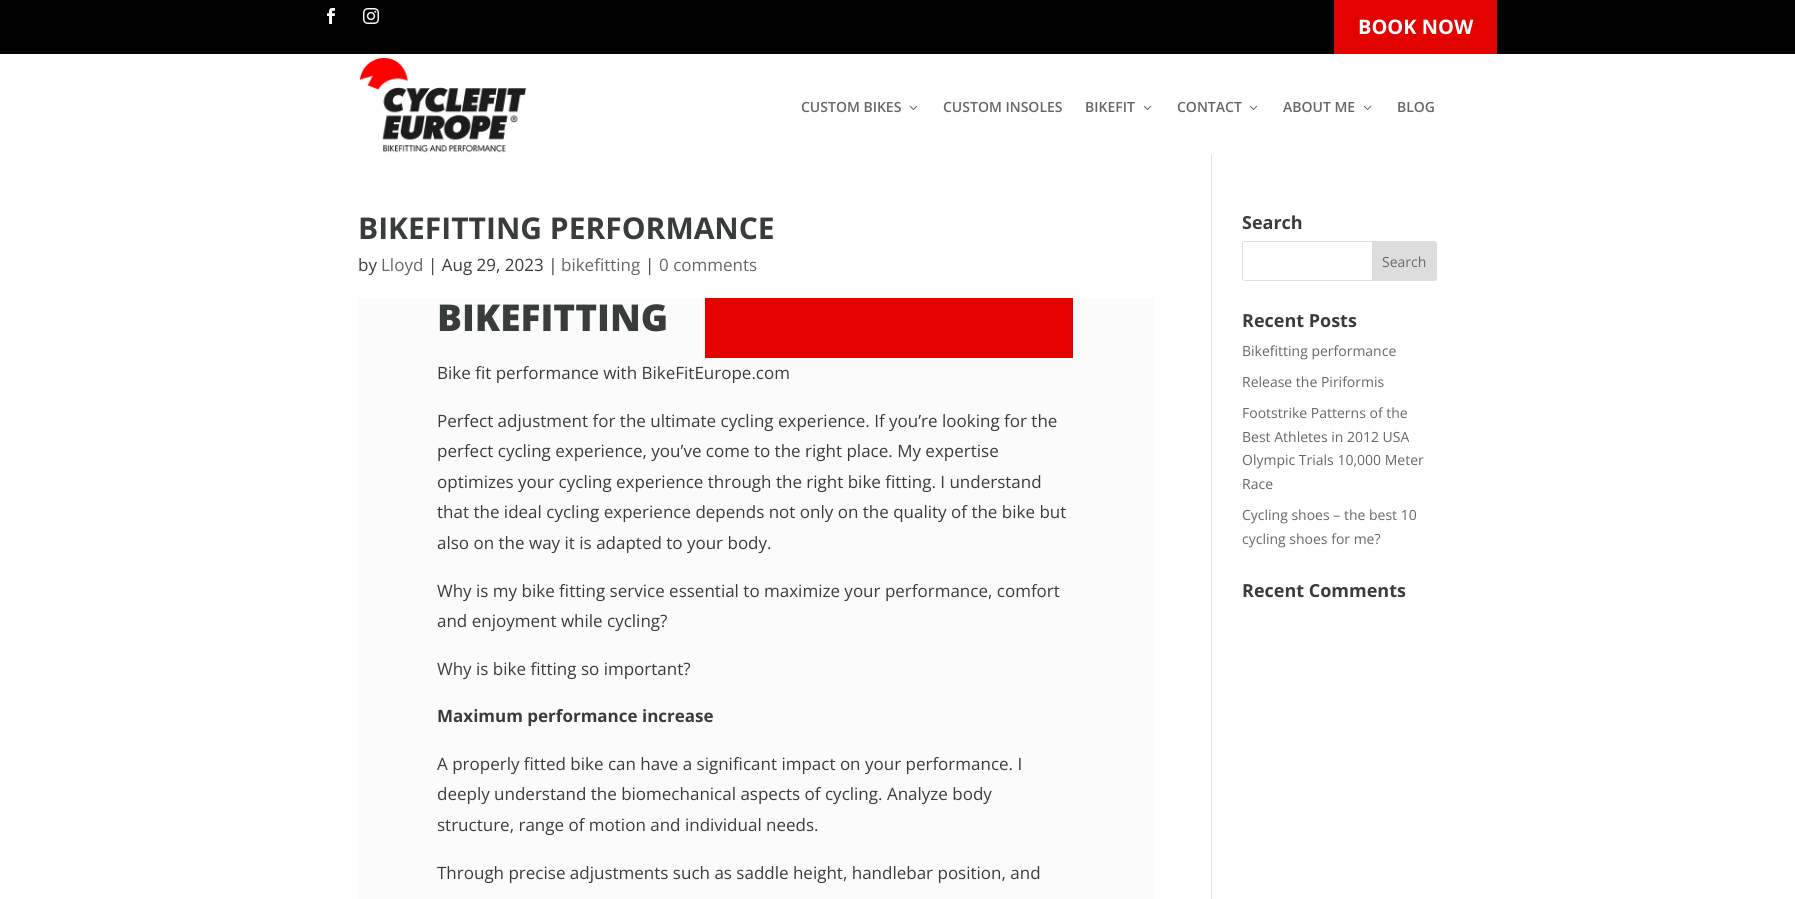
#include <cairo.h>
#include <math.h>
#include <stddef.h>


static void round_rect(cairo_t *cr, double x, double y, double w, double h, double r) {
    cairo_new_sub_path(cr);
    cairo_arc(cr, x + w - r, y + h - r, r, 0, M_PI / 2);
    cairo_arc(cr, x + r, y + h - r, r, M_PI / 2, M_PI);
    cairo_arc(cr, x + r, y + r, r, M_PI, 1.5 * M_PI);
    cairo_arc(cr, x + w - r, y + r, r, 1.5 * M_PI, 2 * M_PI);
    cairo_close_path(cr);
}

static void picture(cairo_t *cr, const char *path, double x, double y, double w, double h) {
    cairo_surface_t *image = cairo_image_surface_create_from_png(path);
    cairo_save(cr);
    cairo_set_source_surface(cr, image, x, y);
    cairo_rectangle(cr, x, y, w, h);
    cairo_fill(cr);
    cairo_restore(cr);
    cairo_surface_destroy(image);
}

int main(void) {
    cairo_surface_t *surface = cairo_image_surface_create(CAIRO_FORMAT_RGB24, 1795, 899);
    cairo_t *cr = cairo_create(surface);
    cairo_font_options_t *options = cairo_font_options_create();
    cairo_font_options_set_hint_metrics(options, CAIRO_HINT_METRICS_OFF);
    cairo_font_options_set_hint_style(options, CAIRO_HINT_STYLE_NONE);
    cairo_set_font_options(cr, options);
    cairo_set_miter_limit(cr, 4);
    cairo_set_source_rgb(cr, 1, 1, 1);
    cairo_paint(cr);
    cairo_set_source_rgb(cr, 0, 0, 0);
    cairo_rectangle(cr, 0, 0, 1795, 54);
    cairo_fill(cr);
    picture(cr, "img1.png", 327, 8, 8, 16);
    picture(cr, "img2.png", 363, 8, 16, 16);
    cairo_set_source_rgb(cr, 0.89, 0.008, 0);
    cairo_rectangle(cr, 1334, 0, 163, 54);
    cairo_fill(cr);
    cairo_select_font_face(cr, "Open Sans", CAIRO_FONT_SLANT_NORMAL, CAIRO_FONT_WEIGHT_BOLD);
    cairo_set_font_size(cr, 20);
    cairo_set_source_rgb(cr, 1, 1, 1);
    cairo_move_to(cr, 1358, 34);
    cairo_show_text(cr, "BOOK NOW");
    picture(cr, "img3.png", 360, 58, 167, 95);
    cairo_select_font_face(cr, "Open Sans SemiBold", CAIRO_FONT_SLANT_NORMAL, CAIRO_FONT_WEIGHT_NORMAL);
    cairo_set_font_size(cr, 14);
    cairo_set_source_rgb(cr, 0.4, 0.4, 0.4);
    cairo_move_to(cr, 801, 112);
    cairo_show_text(cr, "CUSTOM BIKES");
    picture(cr, "img4.png", 909, 105, 9, 5);
    cairo_move_to(cr, 943, 112);
    cairo_show_text(cr, "CUSTOM INSOLES");
    cairo_move_to(cr, 1085, 112);
    cairo_show_text(cr, "BIKEFIT");
    picture(cr, "img4.png", 1143, 105, 9, 5);
    cairo_move_to(cr, 1177, 112);
    cairo_show_text(cr, "CONTACT");
    picture(cr, "img4.png", 1249, 105, 9, 5);
    cairo_move_to(cr, 1283, 112);
    cairo_show_text(cr, "ABOUT ME");
    picture(cr, "img4.png", 1363, 105, 9, 5);
    cairo_move_to(cr, 1397, 112);
    cairo_show_text(cr, "BLOG");
    cairo_set_source_rgb(cr, 0.886, 0.886, 0.886);
    cairo_rectangle(cr, 1211, 155, 1, 744);
    cairo_fill(cr);
    cairo_select_font_face(cr, "Open Sans", CAIRO_FONT_SLANT_NORMAL, CAIRO_FONT_WEIGHT_BOLD);
    cairo_set_font_size(cr, 30);
    cairo_set_source_rgb(cr, 0.224, 0.235, 0.239);
    cairo_move_to(cr, 358, 239);
    cairo_show_text(cr, "BIKEFITTING PERFORMANCE");
    cairo_select_font_face(cr, "Open Sans", CAIRO_FONT_SLANT_NORMAL, CAIRO_FONT_WEIGHT_NORMAL);
    cairo_set_font_size(cr, 17);
    cairo_move_to(cr, 358, 271);
    cairo_show_text(cr, "by");
    cairo_set_source_rgb(cr, 0.4, 0.4, 0.4);
    cairo_move_to(cr, 381, 271);
    cairo_show_text(cr, "Lloyd");
    cairo_set_source_rgb(cr, 0.224, 0.235, 0.239);
    cairo_move_to(cr, 428, 271);
    cairo_show_text(cr, "| Aug 29, 2023 |");
    cairo_set_source_rgb(cr, 0.4, 0.4, 0.4);
    cairo_move_to(cr, 561, 271);
    cairo_show_text(cr, "bikefitting");
    cairo_set_source_rgb(cr, 0.224, 0.235, 0.239);
    cairo_move_to(cr, 645, 271);
    cairo_show_text(cr, "|");
    cairo_set_source_rgb(cr, 0.4, 0.4, 0.4);
    cairo_move_to(cr, 659, 271);
    cairo_show_text(cr, "0 comments");
    cairo_set_source_rgb(cr, 0.984, 0.984, 0.984);
    cairo_rectangle(cr, 358, 298, 795, 601);
    cairo_fill(cr);
    cairo_select_font_face(cr, "Open Sans ExtraBold", CAIRO_FONT_SLANT_NORMAL, CAIRO_FONT_WEIGHT_NORMAL);
    cairo_set_font_size(cr, 37);
    cairo_set_source_rgb(cr, 0.224, 0.235, 0.239);
    cairo_move_to(cr, 437, 331);
    cairo_show_text(cr, "BIKEFITTING");
    cairo_set_source_rgb(cr, 0.89, 0.008, 0);
    cairo_rectangle(cr, 705, 298, 368, 60);
    cairo_fill(cr);
    cairo_select_font_face(cr, "Open Sans", CAIRO_FONT_SLANT_NORMAL, CAIRO_FONT_WEIGHT_NORMAL);
    cairo_set_font_size(cr, 17);
    cairo_set_source_rgb(cr, 0.224, 0.235, 0.239);
    cairo_move_to(cr, 437, 379);
    cairo_show_text(cr, "Bike fit performance with BikeFitEurope.com");
    cairo_move_to(cr, 437, 427);
    cairo_show_text(cr, "Perfect adjustment for the ultimate cycling experience. If you’re looking for the");
    cairo_move_to(cr, 437, 457);
    cairo_show_text(cr, "perfect cycling experience, you’ve come to the right place. My expertise");
    cairo_move_to(cr, 437, 488);
    cairo_show_text(cr, "optimizes your cycling experience through the right bike fitting. I understand");
    cairo_move_to(cr, 437, 518);
    cairo_show_text(cr, "that the ideal cycling experience depends not only on the quality of the bike but");
    cairo_move_to(cr, 437, 549);
    cairo_show_text(cr, "also on the way it is adapted to your body.");
    cairo_move_to(cr, 437, 597);
    cairo_show_text(cr, "Why is my bike fitting service essential to maximize your performance, comfort");
    cairo_move_to(cr, 437, 627);
    cairo_show_text(cr, "and enjoyment while cycling?");
    cairo_move_to(cr, 437, 675);
    cairo_show_text(cr, "Why is bike fitting so important?");
    cairo_select_font_face(cr, "Open Sans", CAIRO_FONT_SLANT_NORMAL, CAIRO_FONT_WEIGHT_BOLD);
    cairo_move_to(cr, 437, 722);
    cairo_show_text(cr, "Maximum performance increase");
    cairo_select_font_face(cr, "Open Sans", CAIRO_FONT_SLANT_NORMAL, CAIRO_FONT_WEIGHT_NORMAL);
    cairo_move_to(cr, 437, 770);
    cairo_show_text(cr, "A properly fitted bike can have a significant impact on your performance. I");
    cairo_move_to(cr, 437, 800);
    cairo_show_text(cr, "deeply understand the biomechanical aspects of cycling. Analyze body");
    cairo_move_to(cr, 437, 831);
    cairo_show_text(cr, "structure, range of motion and individual needs.");
    cairo_move_to(cr, 437, 879);
    cairo_show_text(cr, "Through precise adjustments such as saddle height, handlebar position, and");
    cairo_select_font_face(cr, "Open Sans", CAIRO_FONT_SLANT_NORMAL, CAIRO_FONT_WEIGHT_BOLD);
    cairo_set_font_size(cr, 18);
    cairo_move_to(cr, 1242, 229);
    cairo_show_text(cr, "Search");
    round_rect(cr, 1242.5, 241.5, 194, 39, 2.5);
    cairo_set_source_rgb(cr, 0.867, 0.867, 0.867);
    cairo_set_line_width(cr, 1);
    cairo_stroke(cr);
    cairo_new_path(cr);
    cairo_move_to(cr, 1372.5, 241.5);
    cairo_line_to(cr, 1434, 241.5);
    cairo_curve_to(cr, 1435.5, 241.5, 1436.5, 242.5, 1436.5, 244);
    cairo_line_to(cr, 1436.5, 278);
    cairo_curve_to(cr, 1436.5, 279.5, 1435.5, 280.5, 1434, 280.5);
    cairo_line_to(cr, 1372.5, 280.5);
    cairo_close_path(cr);
    cairo_fill_preserve(cr);
    cairo_stroke(cr);
    cairo_select_font_face(cr, "Open Sans", CAIRO_FONT_SLANT_NORMAL, CAIRO_FONT_WEIGHT_NORMAL);
    cairo_set_font_size(cr, 14);
    cairo_set_source_rgb(cr, 0.4, 0.4, 0.4);
    cairo_move_to(cr, 1382, 267);
    cairo_show_text(cr, "Search");
    cairo_select_font_face(cr, "Open Sans", CAIRO_FONT_SLANT_NORMAL, CAIRO_FONT_WEIGHT_BOLD);
    cairo_set_font_size(cr, 18);
    cairo_set_source_rgb(cr, 0.224, 0.235, 0.239);
    cairo_move_to(cr, 1242, 327);
    cairo_show_text(cr, "Recent Posts");
    cairo_select_font_face(cr, "Open Sans", CAIRO_FONT_SLANT_NORMAL, CAIRO_FONT_WEIGHT_NORMAL);
    cairo_set_font_size(cr, 14);
    cairo_set_source_rgb(cr, 0.4, 0.4, 0.4);
    cairo_move_to(cr, 1242, 356);
    cairo_show_text(cr, "Bikefitting performance");
    cairo_move_to(cr, 1242, 387);
    cairo_show_text(cr, "Release the Piriformis");
    cairo_move_to(cr, 1242, 418);
    cairo_show_text(cr, "Footstrike Patterns of the");
    cairo_move_to(cr, 1242, 442);
    cairo_show_text(cr, "Best Athletes in 2012 USA");
    cairo_move_to(cr, 1242, 465);
    cairo_show_text(cr, "Olympic Trials 10,000 Meter");
    cairo_move_to(cr, 1242, 489);
    cairo_show_text(cr, "Race");
    cairo_move_to(cr, 1242, 520);
    cairo_show_text(cr, "Cycling shoes – the best 10");
    cairo_move_to(cr, 1242, 544);
    cairo_show_text(cr, "cycling shoes for me?");
    cairo_select_font_face(cr, "Open Sans", CAIRO_FONT_SLANT_NORMAL, CAIRO_FONT_WEIGHT_BOLD);
    cairo_set_font_size(cr, 18);
    cairo_set_source_rgb(cr, 0.224, 0.235, 0.239);
    cairo_move_to(cr, 1242, 597);
    cairo_show_text(cr, "Recent Comments");
    cairo_surface_write_to_png(surface, "page.png");
    cairo_font_options_destroy(options);
    cairo_destroy(cr);
    cairo_surface_destroy(surface);
    return 0;
}
